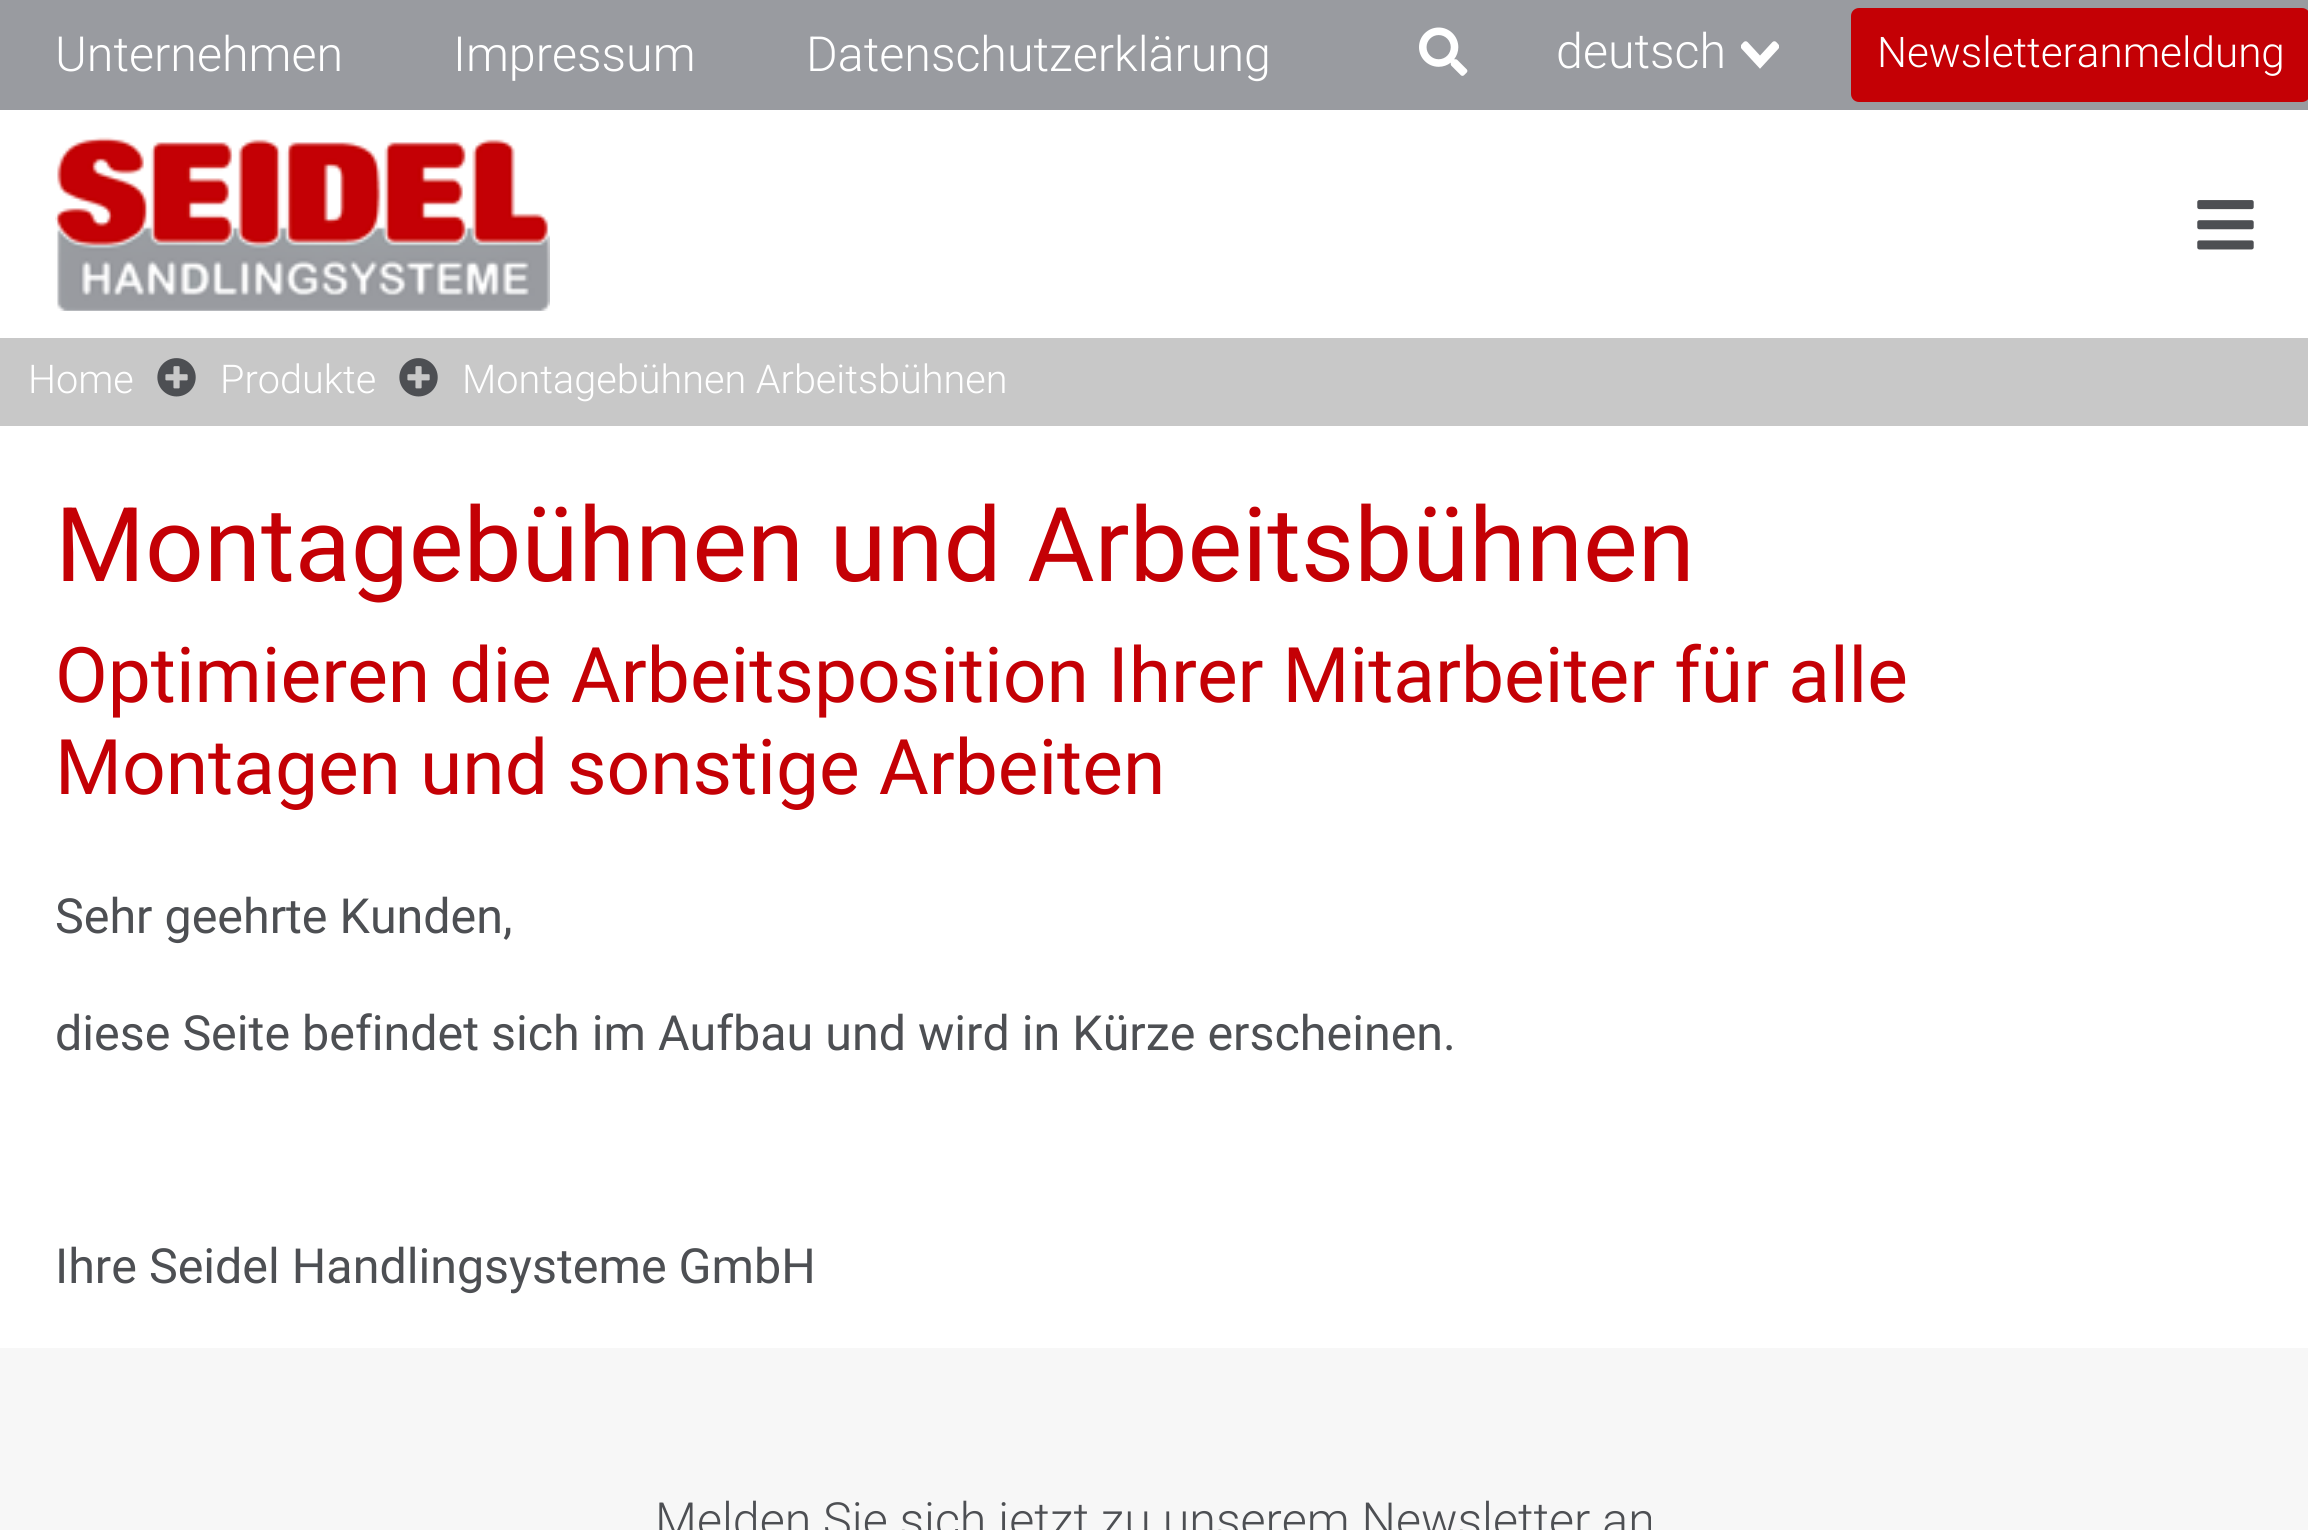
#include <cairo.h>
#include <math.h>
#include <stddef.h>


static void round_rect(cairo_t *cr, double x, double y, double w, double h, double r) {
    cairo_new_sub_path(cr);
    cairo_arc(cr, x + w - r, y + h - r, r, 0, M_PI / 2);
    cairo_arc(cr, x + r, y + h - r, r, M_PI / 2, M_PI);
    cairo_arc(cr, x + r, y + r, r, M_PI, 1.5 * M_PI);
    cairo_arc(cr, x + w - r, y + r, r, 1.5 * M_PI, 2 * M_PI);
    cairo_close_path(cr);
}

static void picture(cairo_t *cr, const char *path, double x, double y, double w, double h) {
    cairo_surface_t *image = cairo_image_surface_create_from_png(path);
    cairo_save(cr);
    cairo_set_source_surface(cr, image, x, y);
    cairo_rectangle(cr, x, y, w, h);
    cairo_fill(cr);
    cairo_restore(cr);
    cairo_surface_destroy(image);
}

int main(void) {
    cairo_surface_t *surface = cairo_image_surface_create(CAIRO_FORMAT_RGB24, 2308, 1530);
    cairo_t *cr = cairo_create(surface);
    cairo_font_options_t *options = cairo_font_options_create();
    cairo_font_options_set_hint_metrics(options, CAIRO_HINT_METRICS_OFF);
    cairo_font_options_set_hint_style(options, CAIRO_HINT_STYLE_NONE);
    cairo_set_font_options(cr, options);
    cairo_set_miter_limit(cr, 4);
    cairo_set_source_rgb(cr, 1, 1, 1);
    cairo_paint(cr);
    cairo_set_source_rgb(cr, 0.6, 0.608, 0.627);
    cairo_rectangle(cr, 0, 0, 2308, 110);
    cairo_fill(cr);
    cairo_select_font_face(cr, "Roboto Light", CAIRO_FONT_SLANT_NORMAL, CAIRO_FONT_WEIGHT_NORMAL);
    cairo_set_font_size(cr, 48.4);
    cairo_set_source_rgb(cr, 1, 1, 1);
    cairo_move_to(cr, 55, 71);
    cairo_show_text(cr, "Unternehmen");
    cairo_move_to(cr, 453, 71);
    cairo_show_text(cr, "Impressum");
    cairo_move_to(cr, 806, 71);
    cairo_show_text(cr, "Datenschutzerklärung");
    picture(cr, "img1.png", 1419, 27, 49, 49);
    cairo_move_to(cr, 1556, 68);
    cairo_show_text(cr, "deutsch");
    picture(cr, "img2.png", 1741, 41, 38, 28);
    cairo_set_source_rgb(cr, 0.769, 0, 0.02);
    round_rect(cr, 1852.5, 9.5, 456, 91, 6.5);
    cairo_fill_preserve(cr);
    cairo_set_line_width(cr, 3);
    cairo_stroke(cr);
    cairo_set_font_size(cr, 42.25);
    cairo_set_source_rgb(cr, 1, 1, 1);
    cairo_move_to(cr, 1877, 67);
    cairo_show_text(cr, "Newsletteranmeldung");
    picture(cr, "img3.png", 55, 137, 495, 174);
    picture(cr, "img4.png", 2197, 200, 57, 50);
    cairo_set_source_rgb(cr, 0.784, 0.784, 0.784);
    cairo_rectangle(cr, 0, 338, 2308, 88);
    cairo_fill(cr);
    cairo_set_font_size(cr, 39.6);
    cairo_set_source_rgb(cr, 1, 1, 1);
    cairo_move_to(cr, 28, 393);
    cairo_show_text(cr, "Home");
    picture(cr, "img5.png", 157, 358, 39, 39);
    cairo_move_to(cr, 220, 393);
    cairo_show_text(cr, "Produkte");
    picture(cr, "img5.png", 399, 358, 39, 39);
    cairo_move_to(cr, 462, 393);
    cairo_show_text(cr, "Montagebühnen Arbeitsbühnen");
    cairo_select_font_face(cr, "Roboto", CAIRO_FONT_SLANT_NORMAL, CAIRO_FONT_WEIGHT_NORMAL);
    cairo_set_font_size(cr, 103.2);
    cairo_set_source_rgb(cr, 0.769, 0, 0.02);
    cairo_move_to(cr, 55, 581);
    cairo_show_text(cr, "Montagebühnen und Arbeitsbühnen");
    cairo_set_font_size(cr, 76.7);
    cairo_move_to(cr, 55, 702);
    cairo_show_text(cr, "Optimieren die Arbeitsposition Ihrer Mitarbeiter für alle");
    cairo_move_to(cr, 55, 794);
    cairo_show_text(cr, "Montagen und sonstige Arbeiten");
    cairo_set_font_size(cr, 48.4);
    cairo_set_source_rgb(cr, 0.302, 0.31, 0.325);
    cairo_move_to(cr, 55, 933);
    cairo_show_text(cr, "Sehr geehrte Kunden,");
    cairo_move_to(cr, 55, 1050);
    cairo_show_text(cr, "diese Seite befindet sich im Aufbau und wird in Kürze erscheinen.");
    cairo_move_to(cr, 55, 1283);
    cairo_show_text(cr, "Ihre Seidel Handlingsysteme GmbH");
    cairo_set_source_rgb(cr, 0.965, 0.965, 0.965);
    cairo_rectangle(cr, 0, 1348, 2308, 182);
    cairo_fill(cr);
    cairo_select_font_face(cr, "Roboto Light", CAIRO_FONT_SLANT_NORMAL, CAIRO_FONT_WEIGHT_NORMAL);
    cairo_set_source_rgb(cr, 0.302, 0.31, 0.325);
    cairo_move_to(cr, 655, 1537);
    cairo_show_text(cr, "Melden Sie sich jetzt zu unserem Newsletter an");
    cairo_surface_write_to_png(surface, "page.png");
    cairo_font_options_destroy(options);
    cairo_destroy(cr);
    cairo_surface_destroy(surface);
    return 0;
}
